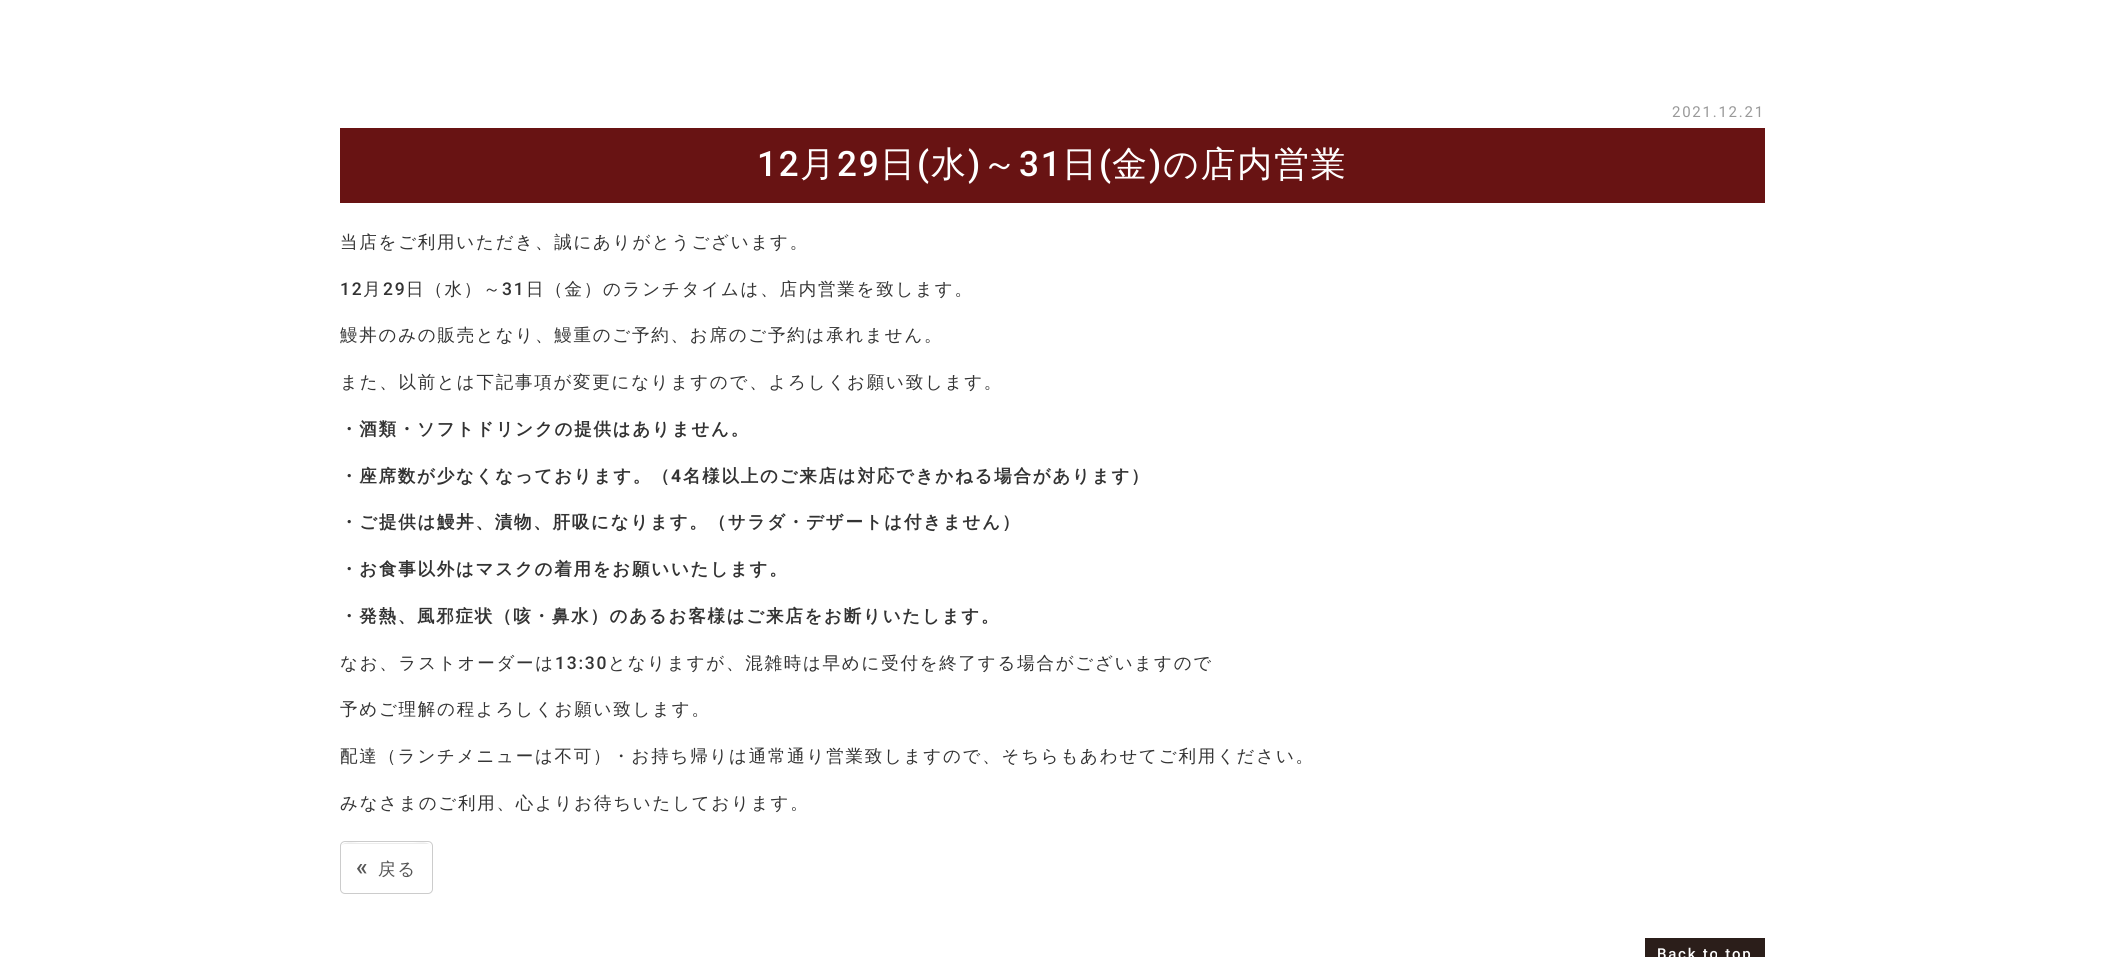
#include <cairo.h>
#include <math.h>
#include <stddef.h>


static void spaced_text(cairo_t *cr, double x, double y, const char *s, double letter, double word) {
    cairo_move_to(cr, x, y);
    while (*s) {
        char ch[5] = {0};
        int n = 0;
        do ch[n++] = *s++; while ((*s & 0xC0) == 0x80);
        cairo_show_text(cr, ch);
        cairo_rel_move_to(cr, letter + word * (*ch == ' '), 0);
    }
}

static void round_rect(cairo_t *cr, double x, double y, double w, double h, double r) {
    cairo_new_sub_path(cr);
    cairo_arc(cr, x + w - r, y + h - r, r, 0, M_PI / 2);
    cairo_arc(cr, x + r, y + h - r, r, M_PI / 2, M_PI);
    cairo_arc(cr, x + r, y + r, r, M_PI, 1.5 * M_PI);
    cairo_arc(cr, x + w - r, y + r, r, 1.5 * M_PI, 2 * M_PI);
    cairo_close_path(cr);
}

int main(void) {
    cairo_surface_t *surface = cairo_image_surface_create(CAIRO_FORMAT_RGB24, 2105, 957);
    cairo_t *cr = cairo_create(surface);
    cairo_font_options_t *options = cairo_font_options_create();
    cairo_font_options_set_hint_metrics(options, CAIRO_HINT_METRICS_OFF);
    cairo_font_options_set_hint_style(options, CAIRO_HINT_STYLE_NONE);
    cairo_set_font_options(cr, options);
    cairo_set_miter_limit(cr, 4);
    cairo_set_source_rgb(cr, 1, 1, 1);
    cairo_paint(cr);
    cairo_select_font_face(cr, "Roboto", CAIRO_FONT_SLANT_NORMAL, CAIRO_FONT_WEIGHT_NORMAL);
    cairo_set_font_size(cr, 15);
    cairo_set_source_rgb(cr, 0.6, 0.6, 0.6);
    spaced_text(cr, 1672, 117, "2021.12.21", 1.75, 0);
    cairo_set_source_rgb(cr, 0.408, 0.075, 0.075);
    cairo_rectangle(cr, 340, 128, 1425, 75);
    cairo_fill(cr);
    cairo_select_font_face(cr, "Roboto Medium", CAIRO_FONT_SLANT_NORMAL, CAIRO_FONT_WEIGHT_NORMAL);
    cairo_set_font_size(cr, 35);
    cairo_set_source_rgb(cr, 1, 1, 1);
    spaced_text(cr, 757, 176, "12", 1.75, 0);
    cairo_select_font_face(cr, "WenQuanYi Zen Hei Medium", CAIRO_FONT_SLANT_NORMAL, CAIRO_FONT_WEIGHT_NORMAL);
    spaced_text(cr, 800, 176, "月", 1.75, 0);
    cairo_select_font_face(cr, "Roboto Medium", CAIRO_FONT_SLANT_NORMAL, CAIRO_FONT_WEIGHT_NORMAL);
    spaced_text(cr, 837, 176, "29", 1.75, 0);
    cairo_select_font_face(cr, "WenQuanYi Zen Hei Medium", CAIRO_FONT_SLANT_NORMAL, CAIRO_FONT_WEIGHT_NORMAL);
    spaced_text(cr, 880, 176, "日", 1.75, 0);
    cairo_select_font_face(cr, "Roboto Medium", CAIRO_FONT_SLANT_NORMAL, CAIRO_FONT_WEIGHT_NORMAL);
    spaced_text(cr, 917, 176, "(", 1.75, 0);
    cairo_select_font_face(cr, "WenQuanYi Zen Hei Medium", CAIRO_FONT_SLANT_NORMAL, CAIRO_FONT_WEIGHT_NORMAL);
    spaced_text(cr, 931, 176, "水", 1.75, 0);
    cairo_select_font_face(cr, "Roboto Medium", CAIRO_FONT_SLANT_NORMAL, CAIRO_FONT_WEIGHT_NORMAL);
    spaced_text(cr, 968, 176, ")", 1.75, 0);
    cairo_select_font_face(cr, "WenQuanYi Zen Hei Medium", CAIRO_FONT_SLANT_NORMAL, CAIRO_FONT_WEIGHT_NORMAL);
    spaced_text(cr, 982, 176, "～", 1.75, 0);
    cairo_select_font_face(cr, "Roboto Medium", CAIRO_FONT_SLANT_NORMAL, CAIRO_FONT_WEIGHT_NORMAL);
    spaced_text(cr, 1019, 176, "31", 1.75, 0);
    cairo_select_font_face(cr, "WenQuanYi Zen Hei Medium", CAIRO_FONT_SLANT_NORMAL, CAIRO_FONT_WEIGHT_NORMAL);
    spaced_text(cr, 1062, 176, "日", 1.75, 0);
    cairo_select_font_face(cr, "Roboto Medium", CAIRO_FONT_SLANT_NORMAL, CAIRO_FONT_WEIGHT_NORMAL);
    spaced_text(cr, 1099, 176, "(", 1.75, 0);
    cairo_select_font_face(cr, "WenQuanYi Zen Hei Medium", CAIRO_FONT_SLANT_NORMAL, CAIRO_FONT_WEIGHT_NORMAL);
    spaced_text(cr, 1112, 176, "金", 1.75, 0);
    cairo_select_font_face(cr, "Roboto Medium", CAIRO_FONT_SLANT_NORMAL, CAIRO_FONT_WEIGHT_NORMAL);
    spaced_text(cr, 1149, 176, ")", 1.75, 0);
    cairo_select_font_face(cr, "WenQuanYi Zen Hei Medium", CAIRO_FONT_SLANT_NORMAL, CAIRO_FONT_WEIGHT_NORMAL);
    spaced_text(cr, 1163, 176, "の店内営業", 1.75, 0);
    cairo_set_font_size(cr, 17.5);
    cairo_set_source_rgb(cr, 0.2, 0.2, 0.2);
    spaced_text(cr, 340, 248, "当店をご利用いただき、誠にありがとうございます。", 1.75, 0);
    cairo_select_font_face(cr, "Roboto Medium", CAIRO_FONT_SLANT_NORMAL, CAIRO_FONT_WEIGHT_NORMAL);
    spaced_text(cr, 340, 295, "12", 1.75, 0);
    cairo_select_font_face(cr, "WenQuanYi Zen Hei Medium", CAIRO_FONT_SLANT_NORMAL, CAIRO_FONT_WEIGHT_NORMAL);
    spaced_text(cr, 363, 295, "月", 1.75, 0);
    cairo_select_font_face(cr, "Roboto Medium", CAIRO_FONT_SLANT_NORMAL, CAIRO_FONT_WEIGHT_NORMAL);
    spaced_text(cr, 383, 295, "29", 1.75, 0);
    cairo_select_font_face(cr, "WenQuanYi Zen Hei Medium", CAIRO_FONT_SLANT_NORMAL, CAIRO_FONT_WEIGHT_NORMAL);
    spaced_text(cr, 406, 295, "日（水）～", 1.75, 0);
    cairo_select_font_face(cr, "Roboto Medium", CAIRO_FONT_SLANT_NORMAL, CAIRO_FONT_WEIGHT_NORMAL);
    spaced_text(cr, 502, 295, "31", 1.75, 0);
    cairo_select_font_face(cr, "WenQuanYi Zen Hei Medium", CAIRO_FONT_SLANT_NORMAL, CAIRO_FONT_WEIGHT_NORMAL);
    spaced_text(cr, 526, 295, "日（金）のランチタイムは、店内営業を致します。", 1.75, 0);
    spaced_text(cr, 340, 341, "鰻丼のみの販売となり、鰻重のご予約、お席のご予約は承れません。", 1.75, 0);
    spaced_text(cr, 340, 388, "また、以前とは下記事項が変更になりますので、よろしくお願い致します。", 1.75, 0);
    cairo_select_font_face(cr, "WenQuanYi Zen Hei", CAIRO_FONT_SLANT_NORMAL, CAIRO_FONT_WEIGHT_BOLD);
    spaced_text(cr, 340, 435, "・酒類・ソフトドリンクの提供はありません。", 1.75, 0);
    spaced_text(cr, 340, 482, "・座席数が少なくなっております。（", 1.75, 0);
    cairo_select_font_face(cr, "Roboto", CAIRO_FONT_SLANT_NORMAL, CAIRO_FONT_WEIGHT_BOLD);
    spaced_text(cr, 671, 482, "4", 1.75, 0);
    cairo_select_font_face(cr, "WenQuanYi Zen Hei", CAIRO_FONT_SLANT_NORMAL, CAIRO_FONT_WEIGHT_BOLD);
    spaced_text(cr, 683, 482, "名様以上のご来店は対応できかねる場合があります）", 1.75, 0);
    spaced_text(cr, 340, 528, "・ご提供は鰻丼、漬物、肝吸になります。（サラダ・デザートは付きません）", 1.75, 0);
    spaced_text(cr, 340, 575, "・お食事以外はマスクの着用をお願いいたします。", 1.75, 0);
    spaced_text(cr, 340, 622, "・発熱、風邪症状（咳・鼻水）のあるお客様はご来店をお断りいたします。", 1.75, 0);
    cairo_select_font_face(cr, "WenQuanYi Zen Hei Medium", CAIRO_FONT_SLANT_NORMAL, CAIRO_FONT_WEIGHT_NORMAL);
    spaced_text(cr, 340, 669, "なお、ラストオーダーは", 1.75, 0);
    cairo_select_font_face(cr, "Roboto Medium", CAIRO_FONT_SLANT_NORMAL, CAIRO_FONT_WEIGHT_NORMAL);
    spaced_text(cr, 555, 669, "13:30", 1.75, 0);
    cairo_select_font_face(cr, "WenQuanYi Zen Hei Medium", CAIRO_FONT_SLANT_NORMAL, CAIRO_FONT_WEIGHT_NORMAL);
    spaced_text(cr, 608, 669, "となりますが、混雑時は早めに受付を終了する場合がございますので", 1.75, 0);
    spaced_text(cr, 340, 715, "予めご理解の程よろしくお願い致します。", 1.75, 0);
    spaced_text(cr, 340, 762, "配達（ランチメニューは不可）・お持ち帰りは通常通り営業致しますので、そちらもあわせてご利用ください。", 1.75, 0);
    spaced_text(cr, 340, 809, "みなさまのご利用、心よりお待ちいたしております。", 1.75, 0);
    cairo_set_source_rgb(cr, 0.925, 0.925, 0.925);
    cairo_new_path(cr);
    cairo_move_to(cr, 345, 844);
    cairo_line_to(cr, 428, 844);
    cairo_curve_to(cr, 430, 844, 431, 845, 431, 848);
    cairo_curve_to(cr, 431, 840, 418, 843, 413, 843);
    cairo_line_to(cr, 359, 843);
    cairo_curve_to(cr, 354, 843, 341, 840, 341, 848);
    cairo_curve_to(cr, 341, 845, 343, 844, 345, 844);
    cairo_close_path(cr);
    cairo_fill(cr);
    round_rect(cr, 340.5, 841.5, 92, 52, 4.5);
    cairo_set_source_rgb(cr, 0.8, 0.8, 0.8);
    cairo_set_line_width(cr, 1);
    cairo_stroke(cr);
    cairo_select_font_face(cr, "Roboto Medium", CAIRO_FONT_SLANT_NORMAL, CAIRO_FONT_WEIGHT_NORMAL);
    cairo_set_font_size(cr, 24);
    cairo_set_source_rgb(cr, 0.333, 0.333, 0.333);
    spaced_text(cr, 356, 875, "«", 1.75, 0);
    cairo_select_font_face(cr, "WenQuanYi Zen Hei Medium", CAIRO_FONT_SLANT_NORMAL, CAIRO_FONT_WEIGHT_NORMAL);
    cairo_set_font_size(cr, 17.5);
    spaced_text(cr, 378, 875, "戻る", 1.75, 0);
    cairo_set_source_rgb(cr, 0.169, 0.118, 0.102);
    cairo_rectangle(cr, 1645, 938, 120, 19);
    cairo_fill(cr);
    cairo_select_font_face(cr, "Roboto Medium", CAIRO_FONT_SLANT_NORMAL, CAIRO_FONT_WEIGHT_NORMAL);
    cairo_set_font_size(cr, 15);
    cairo_set_source_rgb(cr, 1, 1, 1);
    spaced_text(cr, 1657, 959, "Back to top", 1.75, 0);
    cairo_surface_write_to_png(surface, "page.png");
    cairo_font_options_destroy(options);
    cairo_destroy(cr);
    cairo_surface_destroy(surface);
    return 0;
}
